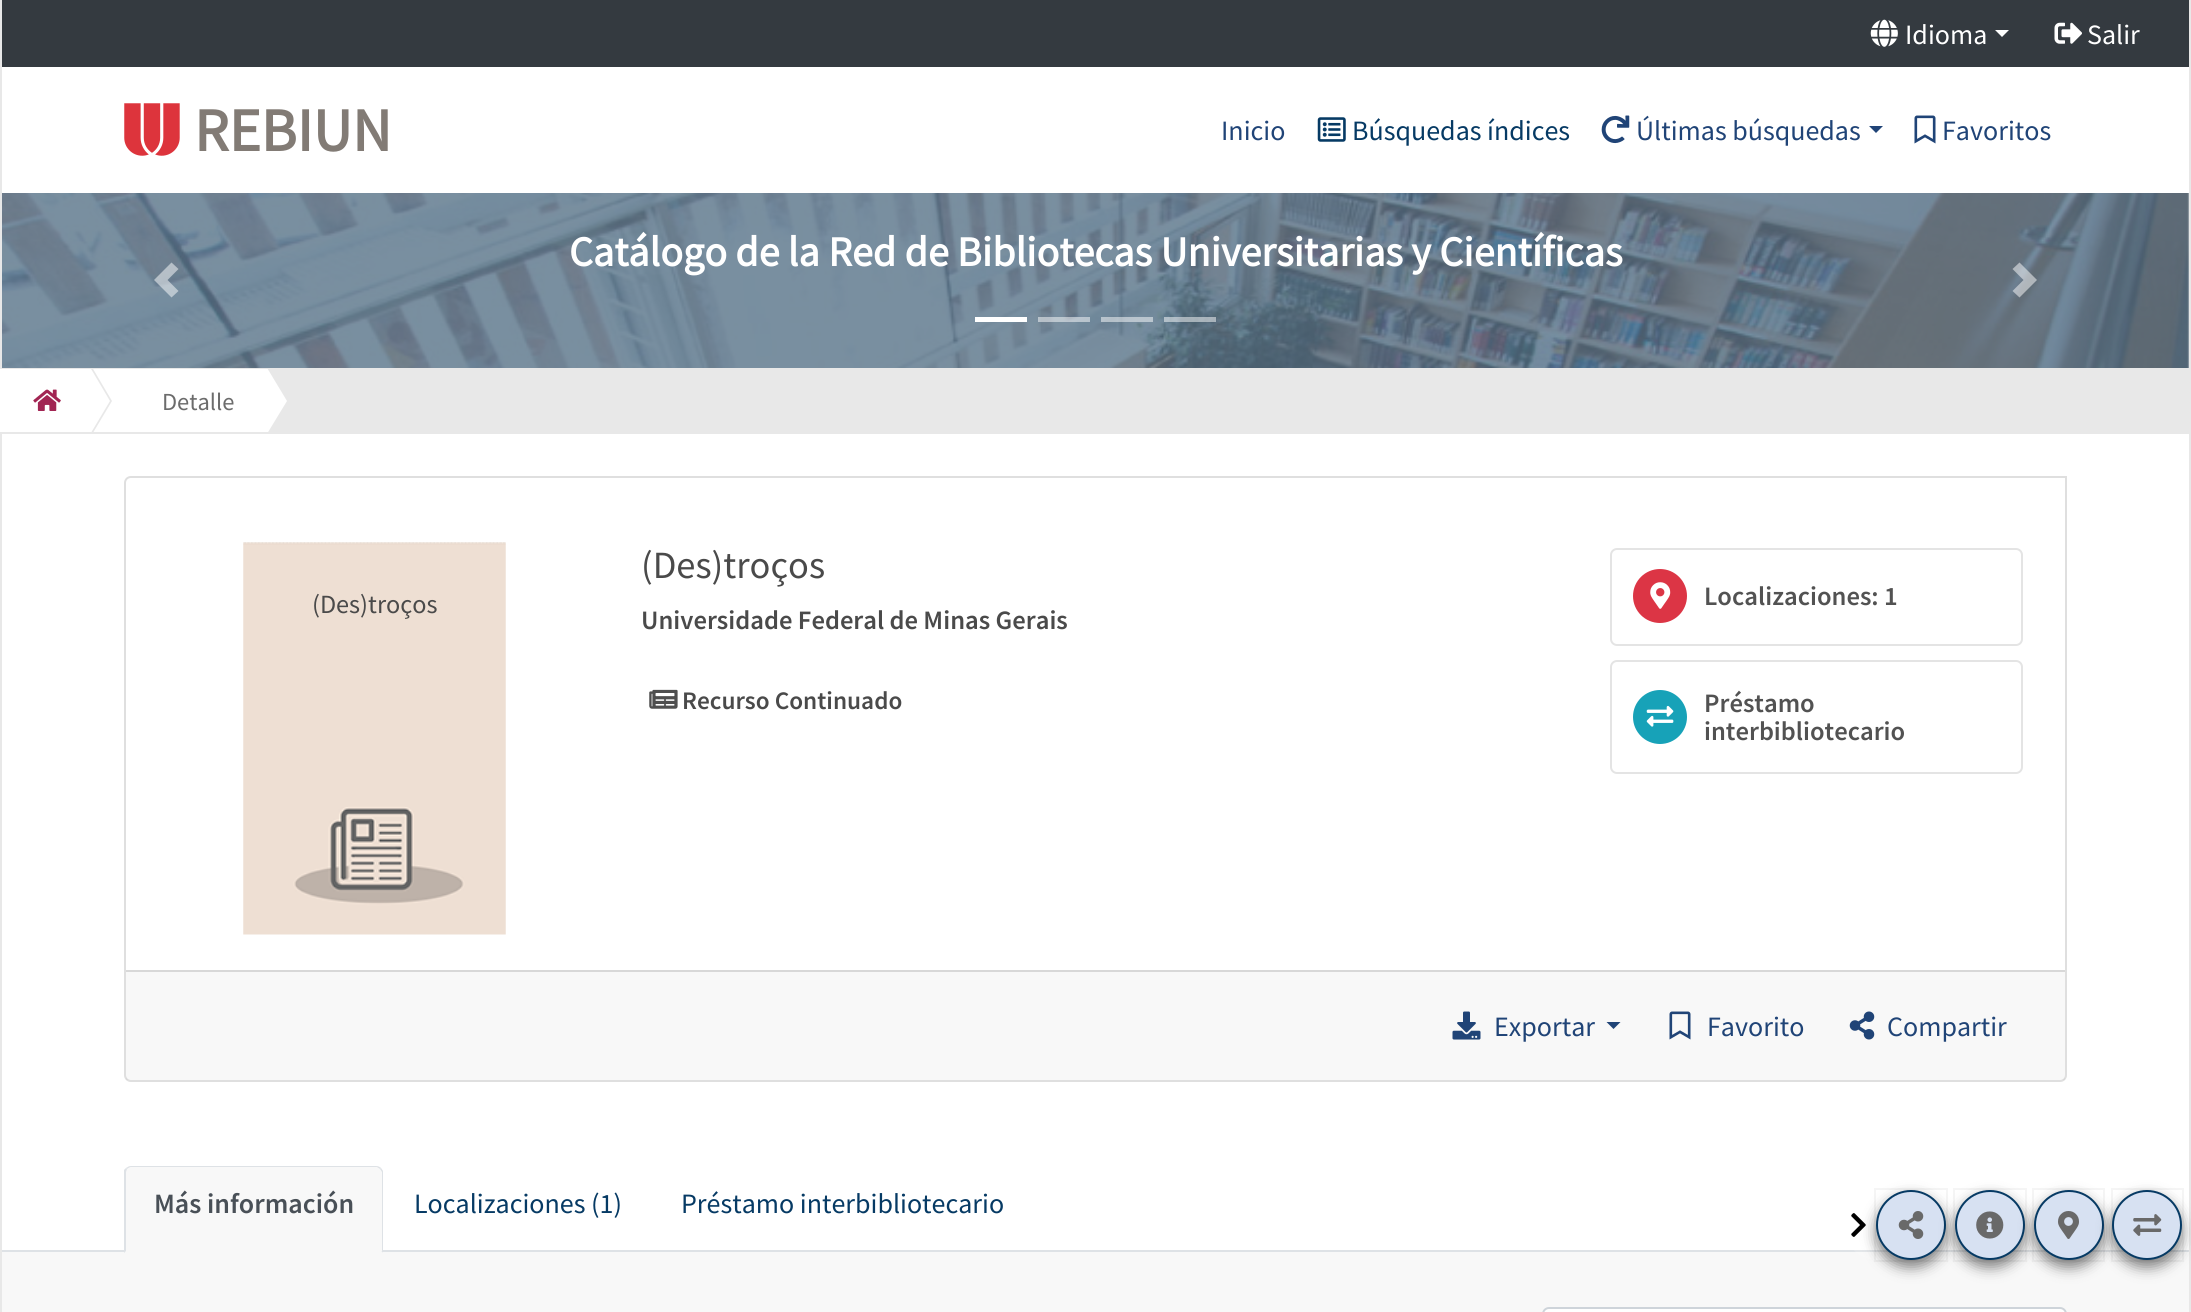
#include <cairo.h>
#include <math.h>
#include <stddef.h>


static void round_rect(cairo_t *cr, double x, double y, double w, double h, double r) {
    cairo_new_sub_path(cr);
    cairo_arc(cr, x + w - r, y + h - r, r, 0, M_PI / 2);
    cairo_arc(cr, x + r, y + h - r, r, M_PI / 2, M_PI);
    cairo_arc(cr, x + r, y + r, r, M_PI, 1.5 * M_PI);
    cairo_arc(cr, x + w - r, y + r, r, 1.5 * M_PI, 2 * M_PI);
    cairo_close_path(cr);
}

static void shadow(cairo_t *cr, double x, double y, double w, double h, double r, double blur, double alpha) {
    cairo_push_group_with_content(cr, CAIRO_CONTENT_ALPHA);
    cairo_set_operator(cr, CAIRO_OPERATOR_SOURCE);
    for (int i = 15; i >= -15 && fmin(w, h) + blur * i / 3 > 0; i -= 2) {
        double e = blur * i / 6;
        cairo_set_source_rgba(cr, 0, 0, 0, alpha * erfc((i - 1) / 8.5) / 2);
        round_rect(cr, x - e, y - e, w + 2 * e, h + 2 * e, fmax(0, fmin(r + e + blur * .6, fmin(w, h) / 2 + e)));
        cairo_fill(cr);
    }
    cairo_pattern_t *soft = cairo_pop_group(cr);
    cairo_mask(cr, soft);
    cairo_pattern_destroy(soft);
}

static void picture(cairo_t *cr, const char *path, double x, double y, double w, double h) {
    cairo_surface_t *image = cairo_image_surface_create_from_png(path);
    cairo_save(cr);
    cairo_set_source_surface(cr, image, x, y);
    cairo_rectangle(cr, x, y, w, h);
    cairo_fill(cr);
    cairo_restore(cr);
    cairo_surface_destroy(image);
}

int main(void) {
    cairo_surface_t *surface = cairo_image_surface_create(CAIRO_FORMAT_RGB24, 2191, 1312);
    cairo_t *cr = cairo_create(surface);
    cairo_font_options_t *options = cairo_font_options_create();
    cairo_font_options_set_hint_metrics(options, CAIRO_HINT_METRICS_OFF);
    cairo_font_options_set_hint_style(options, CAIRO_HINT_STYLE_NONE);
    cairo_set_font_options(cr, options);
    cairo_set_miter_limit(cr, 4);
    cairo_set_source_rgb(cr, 1, 1, 1);
    cairo_paint(cr);
    cairo_set_source_rgb(cr, 0.91, 0.91, 0.91);
    cairo_rectangle(cr, 2189, 0, 2, 1312);
    cairo_fill(cr);
    cairo_rectangle(cr, 0, 0, 2, 1312);
    cairo_fill(cr);
    cairo_set_source_rgb(cr, 0.204, 0.227, 0.251);
    cairo_rectangle(cr, 2, 0, 2187, 67);
    cairo_fill(cr);
    picture(cr, "img1.png", 1870, 19, 28, 28);
    cairo_select_font_face(cr, "Source Sans Pro", CAIRO_FONT_SLANT_NORMAL, CAIRO_FONT_WEIGHT_NORMAL);
    cairo_set_font_size(cr, 28);
    cairo_set_source_rgb(cr, 1, 1, 1);
    cairo_move_to(cr, 1905, 44);
    cairo_show_text(cr, "Idioma");
    cairo_new_path(cr);
    cairo_move_to(cr, 1995, 30);
    cairo_line_to(cr, 2009, 30);
    cairo_line_to(cr, 2002, 37);
    cairo_close_path(cr);
    cairo_fill(cr);
    picture(cr, "img2.png", 2054, 22, 28, 22);
    cairo_move_to(cr, 2087, 44);
    cairo_show_text(cr, "Salir");
    picture(cr, "img3.png", 124, 103, 56, 53);
    cairo_select_font_face(cr, "Source Sans Pro", CAIRO_FONT_SLANT_NORMAL, CAIRO_FONT_WEIGHT_BOLD);
    cairo_set_font_size(cr, 61);
    cairo_set_source_rgb(cr, 0.51, 0.482, 0.459);
    cairo_move_to(cr, 194, 151);
    cairo_show_text(cr, "REBIUN");
    cairo_select_font_face(cr, "Source Sans Pro", CAIRO_FONT_SLANT_NORMAL, CAIRO_FONT_WEIGHT_NORMAL);
    cairo_set_font_size(cr, 28);
    cairo_set_source_rgb(cr, 0.125, 0.267, 0.467);
    cairo_move_to(cr, 1221, 140);
    cairo_show_text(cr, "Inicio");
    picture(cr, "img4.png", 1317, 117, 29, 25);
    cairo_set_source_rgb(cr, 0.024, 0.227, 0.392);
    cairo_move_to(cr, 1352, 140);
    cairo_show_text(cr, "Búsquedas índices");
    picture(cr, "img5.png", 1601, 115, 29, 29);
    cairo_set_source_rgb(cr, 0.125, 0.267, 0.467);
    cairo_move_to(cr, 1636, 140);
    cairo_show_text(cr, "Últimas búsquedas");
    cairo_new_path(cr);
    cairo_move_to(cr, 1869, 126);
    cairo_line_to(cr, 1883, 126);
    cairo_line_to(cr, 1876, 133);
    cairo_close_path(cr);
    cairo_fill(cr);
    picture(cr, "img6.png", 1914, 115, 22, 29);
    cairo_move_to(cr, 1942, 140);
    cairo_show_text(cr, "Favoritos");
    picture(cr, "img7.png", 2, 193, 2187, 175);
    cairo_set_source_rgba(cr, 1, 1, 1, 0.5);
    cairo_new_path(cr);
    cairo_move_to(cr, 171.5, 262.5);
    cairo_line_to(cr, 154, 280);
    cairo_line_to(cr, 171.5, 297.5);
    cairo_line_to(cr, 178.5, 291);
    cairo_line_to(cr, 167.5, 280);
    cairo_line_to(cr, 178.5, 269);
    cairo_close_path(cr);
    cairo_fill(cr);
    cairo_new_path(cr);
    cairo_move_to(cr, 2019.5, 262.5);
    cairo_line_to(cr, 2012.5, 269);
    cairo_line_to(cr, 2023.5, 280);
    cairo_line_to(cr, 2012.5, 291);
    cairo_line_to(cr, 2019.5, 297.5);
    cairo_line_to(cr, 2037, 280);
    cairo_close_path(cr);
    cairo_fill(cr);
    cairo_set_source_rgb(cr, 1, 1, 1);
    cairo_rectangle(cr, 975, 317, 52, 5);
    cairo_fill(cr);
    cairo_set_source_rgba(cr, 1, 1, 1, 0.5);
    cairo_rectangle(cr, 1038, 317, 52, 5);
    cairo_fill(cr);
    cairo_rectangle(cr, 1101, 317, 52, 5);
    cairo_fill(cr);
    cairo_rectangle(cr, 1164, 317, 52, 5);
    cairo_fill(cr);
    cairo_select_font_face(cr, "Source Sans Pro", CAIRO_FONT_SLANT_NORMAL, CAIRO_FONT_WEIGHT_BOLD);
    cairo_set_font_size(cr, 42);
    cairo_set_source_rgb(cr, 1, 1, 1);
    cairo_move_to(cr, 569, 266);
    cairo_show_text(cr, "Catálogo de la Red de Bibliotecas Universitarias y Científicas");
    cairo_set_source_rgb(cr, 0.91, 0.91, 0.91);
    cairo_rectangle(cr, 2, 368, 2187, 66);
    cairo_fill(cr);
    cairo_set_source_rgb(cr, 1, 1, 1);
    cairo_rectangle(cr, 0, 369, 58, 63);
    cairo_fill(cr);
    cairo_rectangle(cr, 93, 369, 141, 63);
    cairo_fill(cr);
    cairo_save(cr);
    cairo_rectangle(cr, 0, 369, 114, 63);
    cairo_clip(cr);
    cairo_set_source_rgb(cr, 0.91, 0.91, 0.91);
    cairo_new_path(cr);
    cairo_move_to(cr, 60, 488);
    cairo_line_to(cr, 60, 313);
    cairo_line_to(cr, 112, 401);
    cairo_close_path(cr);
    cairo_fill(cr);
    cairo_set_source_rgb(cr, 1, 1, 1);
    cairo_new_path(cr);
    cairo_move_to(cr, 58, 488);
    cairo_line_to(cr, 58, 313);
    cairo_line_to(cr, 110, 401);
    cairo_close_path(cr);
    cairo_fill(cr);
    cairo_restore(cr);
    picture(cr, "img8.png", 33, 389, 28, 22);
    cairo_select_font_face(cr, "Source Sans Pro", CAIRO_FONT_SLANT_NORMAL, CAIRO_FONT_WEIGHT_NORMAL);
    cairo_set_font_size(cr, 24.5);
    cairo_set_source_rgb(cr, 0.424, 0.424, 0.424);
    cairo_move_to(cr, 162, 410);
    cairo_show_text(cr, "Detalle");
    cairo_save(cr);
    cairo_rectangle(cr, 58, 369, 233, 63);
    cairo_clip(cr);
    cairo_set_source_rgb(cr, 1, 1, 1);
    cairo_new_path(cr);
    cairo_move_to(cr, 234, 488);
    cairo_line_to(cr, 234, 313);
    cairo_line_to(cr, 287, 401);
    cairo_close_path(cr);
    cairo_fill(cr);
    cairo_restore(cr);
    cairo_new_path(cr);
    cairo_move_to(cr, 131, 477);
    cairo_line_to(cr, 2066, 477);
    cairo_line_to(cr, 2066, 1075);
    cairo_curve_to(cr, 2066, 1078.5, 2063.5, 1081, 2060, 1081);
    cairo_line_to(cr, 131, 1081);
    cairo_curve_to(cr, 127.5, 1081, 125, 1078.5, 125, 1075);
    cairo_line_to(cr, 125, 483);
    cairo_curve_to(cr, 125, 479.5, 127.5, 477, 131, 477);
    cairo_close_path(cr);
    cairo_set_source_rgb(cr, 0.875, 0.875, 0.875);
    cairo_stroke(cr);
    picture(cr, "img9.png", 243, 542, 263, 393);
    cairo_set_font_size(cr, 26.25);
    cairo_set_source_rgb(cr, 0.29, 0.29, 0.29);
    cairo_move_to(cr, 312, 613);
    cairo_show_text(cr, "(Des)troços");
    cairo_set_font_size(cr, 38.5);
    cairo_move_to(cr, 641, 578);
    cairo_show_text(cr, "(Des)troços");
    cairo_select_font_face(cr, "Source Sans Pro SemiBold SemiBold", CAIRO_FONT_SLANT_NORMAL, CAIRO_FONT_WEIGHT_NORMAL);
    cairo_set_font_size(cr, 26.6);
    cairo_move_to(cr, 641, 629);
    cairo_show_text(cr, "Universidade Federal de Minas Gerais");
    picture(cr, "img10.png", 649, 689, 29, 20);
    cairo_set_font_size(cr, 25.25);
    cairo_move_to(cr, 682, 709);
    cairo_show_text(cr, "Recurso Continuado");
    round_rect(cr, 1611, 549, 411, 96, 6);
    cairo_set_source_rgb(cr, 0.894, 0.894, 0.894);
    cairo_stroke(cr);
    cairo_set_source_rgb(cr, 0.863, 0.208, 0.271);
    cairo_arc(cr, 1660, 596, 27, 0, 2 * M_PI);
    cairo_fill(cr);
    picture(cr, "img11.png", 1650, 582, 21, 27);
    cairo_set_font_size(cr, 26.6);
    cairo_set_source_rgb(cr, 0.322, 0.322, 0.322);
    cairo_move_to(cr, 1704, 605);
    cairo_show_text(cr, "Localizaciones: 1");
    round_rect(cr, 1611, 661, 411, 112, 6);
    cairo_set_source_rgb(cr, 0.894, 0.894, 0.894);
    cairo_stroke(cr);
    cairo_set_source_rgb(cr, 0.09, 0.635, 0.722);
    cairo_arc(cr, 1660, 717, 27, 0, 2 * M_PI);
    cairo_fill(cr);
    picture(cr, "img12.png", 1646, 705, 28, 22);
    cairo_set_source_rgb(cr, 0.322, 0.322, 0.322);
    cairo_move_to(cr, 1704, 712);
    cairo_show_text(cr, "Préstamo");
    cairo_move_to(cr, 1704, 740);
    cairo_show_text(cr, "interbibliotecario");
    cairo_set_source_rgba(cr, 0, 0, 0, 0.03);
    cairo_rectangle(cr, 126, 972, 1939, 108);
    cairo_fill(cr);
    cairo_set_source_rgb(cr, 0.847, 0.847, 0.847);
    cairo_rectangle(cr, 126, 970, 1939, 2);
    cairo_fill(cr);
    picture(cr, "img13.png", 1452, 1011, 29, 29);
    cairo_select_font_face(cr, "Source Sans Pro", CAIRO_FONT_SLANT_NORMAL, CAIRO_FONT_WEIGHT_NORMAL);
    cairo_set_font_size(cr, 28);
    cairo_set_source_rgb(cr, 0.125, 0.267, 0.467);
    cairo_move_to(cr, 1494, 1036);
    cairo_show_text(cr, "Exportar");
    cairo_new_path(cr);
    cairo_move_to(cr, 1606.5, 1022);
    cairo_line_to(cr, 1620.5, 1022);
    cairo_line_to(cr, 1613.5, 1029);
    cairo_close_path(cr);
    cairo_fill(cr);
    picture(cr, "img14.png", 1669, 1011, 22, 29);
    cairo_move_to(cr, 1707, 1036);
    cairo_show_text(cr, "Favorito");
    picture(cr, "img15.png", 1849, 1011, 26, 29);
    cairo_move_to(cr, 1887, 1036);
    cairo_show_text(cr, "Compartir");
    cairo_set_source_rgb(cr, 0.969, 0.969, 0.969);
    cairo_rectangle(cr, 2, 1252, 2187, 60);
    cairo_fill(cr);
    cairo_set_source_rgb(cr, 0.871, 0.886, 0.902);
    cairo_rectangle(cr, 2, 1250, 2187, 2);
    cairo_fill(cr);
    cairo_set_source_rgb(cr, 0.969, 0.969, 0.969);
    cairo_new_path(cr);
    cairo_move_to(cr, 131, 1166);
    cairo_line_to(cr, 376, 1166);
    cairo_curve_to(cr, 380, 1166, 383, 1169, 383, 1173);
    cairo_line_to(cr, 383, 1253);
    cairo_line_to(cr, 124, 1253);
    cairo_line_to(cr, 124, 1173);
    cairo_curve_to(cr, 124, 1169, 127, 1166, 131, 1166);
    cairo_close_path(cr);
    cairo_fill(cr);
    cairo_set_source_rgb(cr, 0.871, 0.886, 0.902);
    cairo_new_path(cr);
    cairo_move_to(cr, 131, 1166);
    cairo_curve_to(cr, 129, 1166, 128, 1167, 126, 1168);
    cairo_line_to(cr, 127, 1169);
    cairo_curve_to(cr, 128, 1168, 130, 1167, 131, 1167);
    cairo_line_to(cr, 377, 1167);
    cairo_line_to(cr, 380, 1169);
    cairo_line_to(cr, 381, 1168);
    cairo_curve_to(cr, 380, 1167, 378, 1166, 376, 1166);
    cairo_close_path(cr);
    cairo_fill(cr);
    cairo_new_path(cr);
    cairo_move_to(cr, 383, 1253);
    cairo_line_to(cr, 383, 1171);
    cairo_line_to(cr, 381, 1168);
    cairo_line_to(cr, 380, 1169);
    cairo_line_to(cr, 382, 1172);
    cairo_line_to(cr, 382, 1251);
    cairo_line_to(cr, 381, 1251);
    cairo_close_path(cr);
    cairo_fill(cr);
    cairo_set_source_rgb(cr, 0.969, 0.969, 0.969);
    cairo_new_path(cr);
    cairo_move_to(cr, 124, 1253);
    cairo_line_to(cr, 383, 1253);
    cairo_line_to(cr, 381, 1251);
    cairo_line_to(cr, 126, 1251);
    cairo_close_path(cr);
    cairo_fill(cr);
    cairo_set_source_rgb(cr, 0.871, 0.886, 0.902);
    cairo_new_path(cr);
    cairo_move_to(cr, 124, 1253);
    cairo_line_to(cr, 126, 1251);
    cairo_line_to(cr, 126, 1172);
    cairo_line_to(cr, 127, 1169);
    cairo_line_to(cr, 126, 1168);
    cairo_line_to(cr, 124, 1170);
    cairo_close_path(cr);
    cairo_fill(cr);
    cairo_select_font_face(cr, "Source Sans Pro SemiBold SemiBold", CAIRO_FONT_SLANT_NORMAL, CAIRO_FONT_WEIGHT_NORMAL);
    cairo_set_source_rgb(cr, 0.286, 0.314, 0.341);
    cairo_move_to(cr, 154, 1213);
    cairo_show_text(cr, "Más información");
    cairo_select_font_face(cr, "Source Sans Pro", CAIRO_FONT_SLANT_NORMAL, CAIRO_FONT_WEIGHT_NORMAL);
    cairo_set_source_rgb(cr, 0.024, 0.227, 0.392);
    cairo_move_to(cr, 414, 1213);
    cairo_show_text(cr, "Localizaciones (1)");
    cairo_move_to(cr, 681, 1213);
    cairo_show_text(cr, "Préstamo interbibliotecario");
    cairo_set_source_rgb(cr, 1, 1, 1);
    round_rect(cr, 1543, 1308, 523, 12, 6);
    cairo_fill_preserve(cr);
    cairo_set_source_rgb(cr, 0.808, 0.831, 0.855);
    cairo_stroke(cr);
    cairo_set_source_rgba(cr, 1, 1, 1, 0.14);
    round_rect(cr, 1843, 1190, 339, 70, 35);
    cairo_fill(cr);
    picture(cr, "img20.png", 1851, 1213, 15, 24);
    cairo_set_source_rgb(cr, 0, 0, 0);
    shadow(cr, 1876, 1197, 70, 70, 35, 7, 0.5);
    cairo_rectangle(cr, 1875, 1189, 72, 72);
    cairo_set_source_rgba(cr, 0, 0, 0, 0.04);
    cairo_stroke(cr);
    cairo_set_source_rgb(cr, 0.843, 0.882, 0.949);
    cairo_arc(cr, 1911, 1225, 34, 0, 2 * M_PI);
    cairo_fill_preserve(cr);
    cairo_set_source_rgb(cr, 0.024, 0.227, 0.392);
    cairo_stroke(cr);
    picture(cr, "img16.png", 1898, 1211, 26, 28);
    cairo_set_source_rgb(cr, 0, 0, 0);
    shadow(cr, 1955, 1197, 70, 70, 35, 7, 0.5);
    cairo_rectangle(cr, 1954, 1189, 72, 72);
    cairo_set_source_rgba(cr, 0, 0, 0, 0.04);
    cairo_stroke(cr);
    cairo_set_source_rgb(cr, 0.843, 0.882, 0.949);
    cairo_arc(cr, 1990, 1225, 34, 0, 2 * M_PI);
    cairo_fill_preserve(cr);
    cairo_set_source_rgb(cr, 0.024, 0.227, 0.392);
    cairo_stroke(cr);
    picture(cr, "img17.png", 1976, 1211, 28, 28);
    cairo_set_source_rgb(cr, 0, 0, 0);
    shadow(cr, 2034, 1197, 70, 70, 35, 7, 0.5);
    cairo_rectangle(cr, 2033, 1189, 71, 72);
    cairo_set_source_rgba(cr, 0, 0, 0, 0.04);
    cairo_stroke(cr);
    cairo_set_source_rgb(cr, 0.843, 0.882, 0.949);
    cairo_arc(cr, 2069, 1225, 34, 0, 2 * M_PI);
    cairo_fill_preserve(cr);
    cairo_set_source_rgb(cr, 0.024, 0.227, 0.392);
    cairo_stroke(cr);
    picture(cr, "img18.png", 2058, 1211, 21, 28);
    cairo_set_source_rgb(cr, 0, 0, 0);
    shadow(cr, 2112, 1197, 70, 70, 35, 7, 0.5);
    cairo_rectangle(cr, 2112, 1189, 71, 72);
    cairo_set_source_rgba(cr, 0, 0, 0, 0.04);
    cairo_stroke(cr);
    cairo_set_source_rgb(cr, 0.843, 0.882, 0.949);
    cairo_arc(cr, 2147, 1225, 34, 0, 2 * M_PI);
    cairo_fill_preserve(cr);
    cairo_set_source_rgb(cr, 0.024, 0.227, 0.392);
    cairo_stroke(cr);
    picture(cr, "img19.png", 2133, 1214, 29, 22);
    cairo_surface_write_to_png(surface, "page.png");
    cairo_font_options_destroy(options);
    cairo_destroy(cr);
    cairo_surface_destroy(surface);
    return 0;
}
